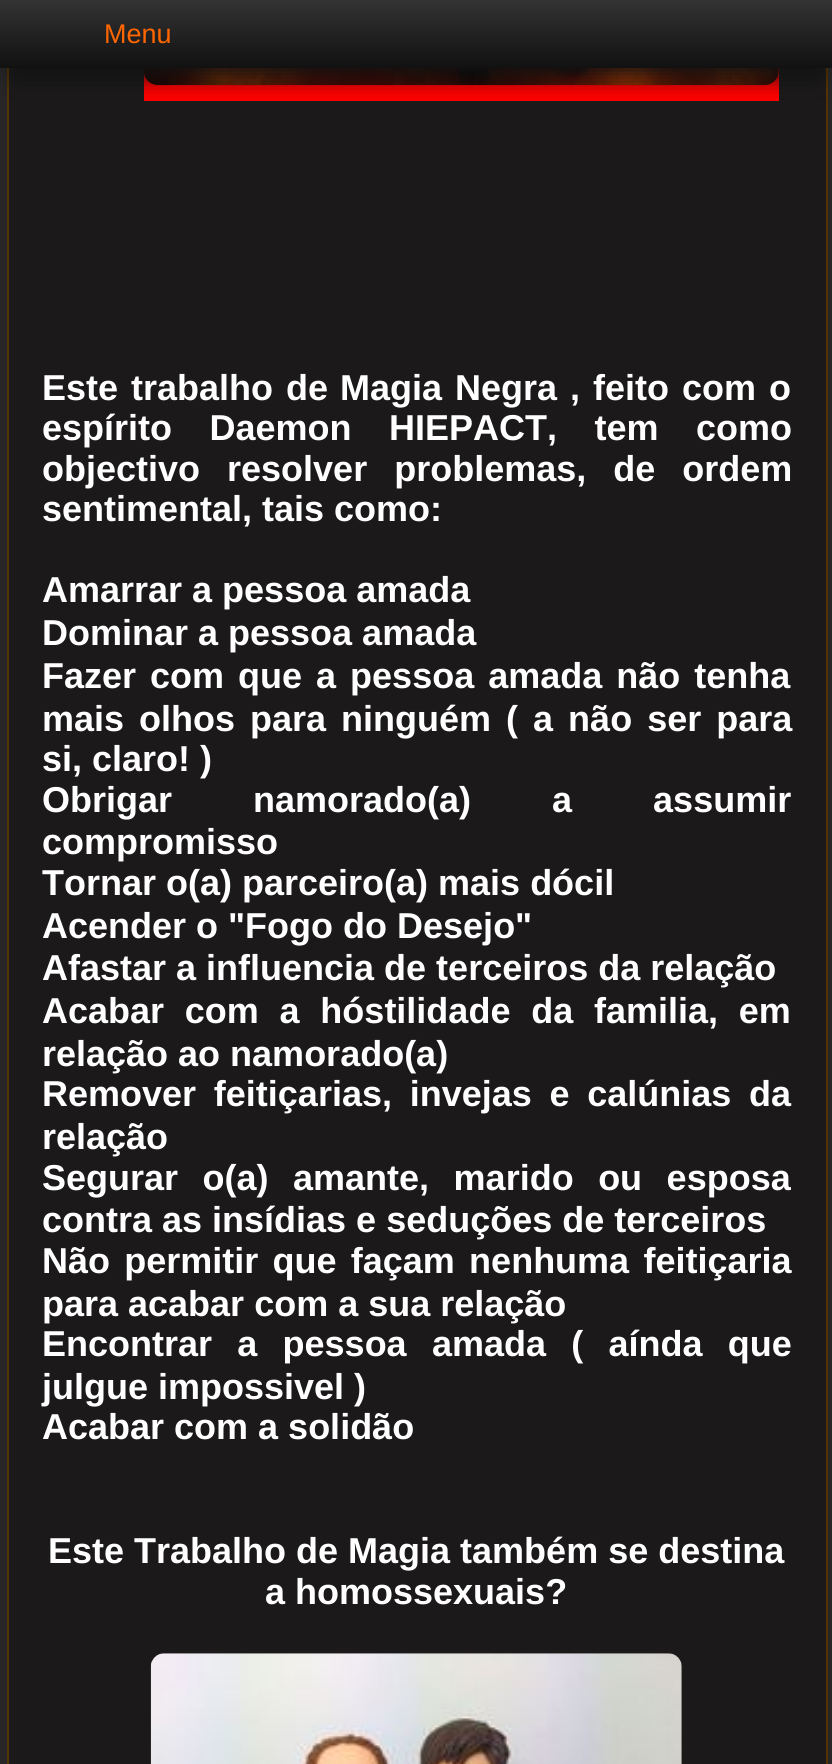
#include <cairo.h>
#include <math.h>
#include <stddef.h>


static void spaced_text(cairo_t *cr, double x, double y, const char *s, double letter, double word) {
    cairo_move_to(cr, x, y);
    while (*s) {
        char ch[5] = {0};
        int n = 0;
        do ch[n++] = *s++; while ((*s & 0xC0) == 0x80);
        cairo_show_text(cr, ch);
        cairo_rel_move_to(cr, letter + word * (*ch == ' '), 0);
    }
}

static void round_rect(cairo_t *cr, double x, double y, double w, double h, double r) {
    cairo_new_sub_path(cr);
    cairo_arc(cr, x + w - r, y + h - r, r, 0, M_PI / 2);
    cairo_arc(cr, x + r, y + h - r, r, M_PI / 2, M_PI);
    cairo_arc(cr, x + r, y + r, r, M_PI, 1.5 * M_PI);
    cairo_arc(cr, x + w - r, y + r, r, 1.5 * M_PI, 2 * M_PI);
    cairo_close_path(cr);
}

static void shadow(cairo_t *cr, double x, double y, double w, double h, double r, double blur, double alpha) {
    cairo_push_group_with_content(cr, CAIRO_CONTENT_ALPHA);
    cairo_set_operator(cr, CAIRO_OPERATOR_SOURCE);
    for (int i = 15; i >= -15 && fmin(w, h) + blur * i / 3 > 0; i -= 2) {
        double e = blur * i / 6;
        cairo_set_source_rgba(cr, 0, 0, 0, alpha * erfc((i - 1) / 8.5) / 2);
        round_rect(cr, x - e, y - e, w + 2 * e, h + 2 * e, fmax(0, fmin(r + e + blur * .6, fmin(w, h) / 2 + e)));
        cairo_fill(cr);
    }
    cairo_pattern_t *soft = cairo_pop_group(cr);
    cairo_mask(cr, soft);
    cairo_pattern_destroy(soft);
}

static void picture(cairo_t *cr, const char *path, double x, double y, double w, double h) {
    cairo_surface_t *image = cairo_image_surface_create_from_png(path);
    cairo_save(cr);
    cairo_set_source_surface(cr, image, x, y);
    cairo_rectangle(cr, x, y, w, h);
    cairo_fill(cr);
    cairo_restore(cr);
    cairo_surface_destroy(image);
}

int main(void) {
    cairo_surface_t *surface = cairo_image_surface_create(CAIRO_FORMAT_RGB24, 832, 1764);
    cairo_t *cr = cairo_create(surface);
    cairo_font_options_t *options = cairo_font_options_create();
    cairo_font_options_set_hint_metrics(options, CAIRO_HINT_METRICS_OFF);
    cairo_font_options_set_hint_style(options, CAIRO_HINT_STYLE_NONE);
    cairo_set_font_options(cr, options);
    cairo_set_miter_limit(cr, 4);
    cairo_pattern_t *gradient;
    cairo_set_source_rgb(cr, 0.153, 0.145, 0.145);
    cairo_paint(cr);
    cairo_set_source_rgb(cr, 0.106, 0.098, 0.098);
    cairo_rectangle(cr, 9, 68, 817, 1696);
    cairo_fill(cr);
    cairo_rectangle(cr, 8, -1, 819, 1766);
    cairo_set_source_rgb(cr, 0.333, 0.2, 0);
    cairo_stroke(cr);
    cairo_set_source_rgb(cr, 1, 0, 0);
    cairo_rectangle(cr, 144, 68, 635, 33);
    cairo_fill(cr);
    picture(cr, "img1.png", 144, 68, 635, 17);
    cairo_set_source_rgb(cr, 0.067, 0.067, 0.067);
    shadow(cr, 14, 36, 805, 41, 0, 11, 1);
    gradient = cairo_pattern_create_linear(0, 0, 0, 68);
    cairo_pattern_add_color_stop_rgba(gradient, 0, 0.2, 0.2, 0.2, 1);
    cairo_pattern_add_color_stop_rgba(gradient, 1, 0.067, 0.067, 0.067, 1);
    cairo_set_source(cr, gradient);
    cairo_pattern_destroy(gradient);
    cairo_rectangle(cr, 0, 0, 832, 68);
    cairo_fill(cr);
    cairo_select_font_face(cr, "Liberation Sans", CAIRO_FONT_SLANT_NORMAL, CAIRO_FONT_WEIGHT_NORMAL);
    cairo_set_font_size(cr, 27);
    cairo_set_source_rgb(cr, 1, 0.4, 0);
    cairo_move_to(cr, 104, 43);
    cairo_show_text(cr, "Menu");
    cairo_select_font_face(cr, "Liberation Sans", CAIRO_FONT_SLANT_NORMAL, CAIRO_FONT_WEIGHT_BOLD);
    cairo_set_font_size(cr, 36);
    cairo_set_source_rgb(cr, 1, 1, 1);
    spaced_text(cr, 42, 400, "Este trabalho de", 0, 3);
    spaced_text(cr, 340, 400, "Magia Negra , feito com o", 0, 3);
    spaced_text(cr, 42, 440, "espírito Daemon HIEPACT, tem como", 0, 27.5);
    spaced_text(cr, 42, 481, "objectivo resolver problemas, de ordem", 0, 17);
    cairo_move_to(cr, 42, 521);
    cairo_show_text(cr, "sentimental, tais como:");
    cairo_move_to(cr, 42, 602);
    cairo_show_text(cr, "Amarrar a pessoa amada");
    cairo_move_to(cr, 42, 645);
    cairo_show_text(cr, "Dominar a pessoa amada");
    spaced_text(cr, 42, 688, "Fazer com que a pessoa amada não tenha", 0, 4);
    spaced_text(cr, 42, 731, "mais olhos para ninguém ( a não ser para", 0, 5);
    cairo_move_to(cr, 42, 771);
    cairo_show_text(cr, "si, claro! )");
    spaced_text(cr, 42, 812, "Obrigar namorado(a) a assumir", 0, 71);
    cairo_move_to(cr, 42, 854);
    cairo_show_text(cr, "compromisso");
    cairo_move_to(cr, 42, 895);
    cairo_show_text(cr, "Tornar o(a) parceiro(a) mais dócil");
    cairo_move_to(cr, 42, 938);
    cairo_show_text(cr, "Acender o \"Fogo do Desejo\"");
    cairo_move_to(cr, 42, 980);
    cairo_show_text(cr, "Afastar a influencia de terceiros da relação");
    spaced_text(cr, 42, 1023, "Acabar com a hóstilidade da familia, em", 0, 10.75);
    cairo_move_to(cr, 42, 1066);
    cairo_show_text(cr, "relação ao namorado(a)");
    spaced_text(cr, 42, 1106, "Remover feitiçarias, invejas e calúnias da", 0, 7.75);
    cairo_move_to(cr, 42, 1149);
    cairo_show_text(cr, "relação");
    spaced_text(cr, 42, 1190, "Segurar o(a) amante, marido ou esposa", 0, 14.5);
    cairo_move_to(cr, 42, 1232);
    cairo_show_text(cr, "contra as insídias e seduções de terceiros");
    spaced_text(cr, 42, 1273, "Não permitir que façam nenhuma feitiçaria", 0, 4.25);
    cairo_move_to(cr, 42, 1316);
    cairo_show_text(cr, "para acabar com a sua relação");
    spaced_text(cr, 42, 1356, "Encontrar a pessoa amada ( aínda que", 0, 15.25);
    cairo_move_to(cr, 42, 1399);
    cairo_show_text(cr, "julgue impossivel )");
    cairo_move_to(cr, 42, 1439);
    cairo_show_text(cr, "Acabar com a solidão");
    cairo_move_to(cr, 48, 1563);
    cairo_show_text(cr, "Este Trabalho de Magia também se destina");
    cairo_move_to(cr, 265, 1604);
    cairo_show_text(cr, "a homossexuais?");
    picture(cr, "img2.png", 150, 1653, 532, 111);
    cairo_surface_write_to_png(surface, "page.png");
    cairo_font_options_destroy(options);
    cairo_destroy(cr);
    cairo_surface_destroy(surface);
    return 0;
}
